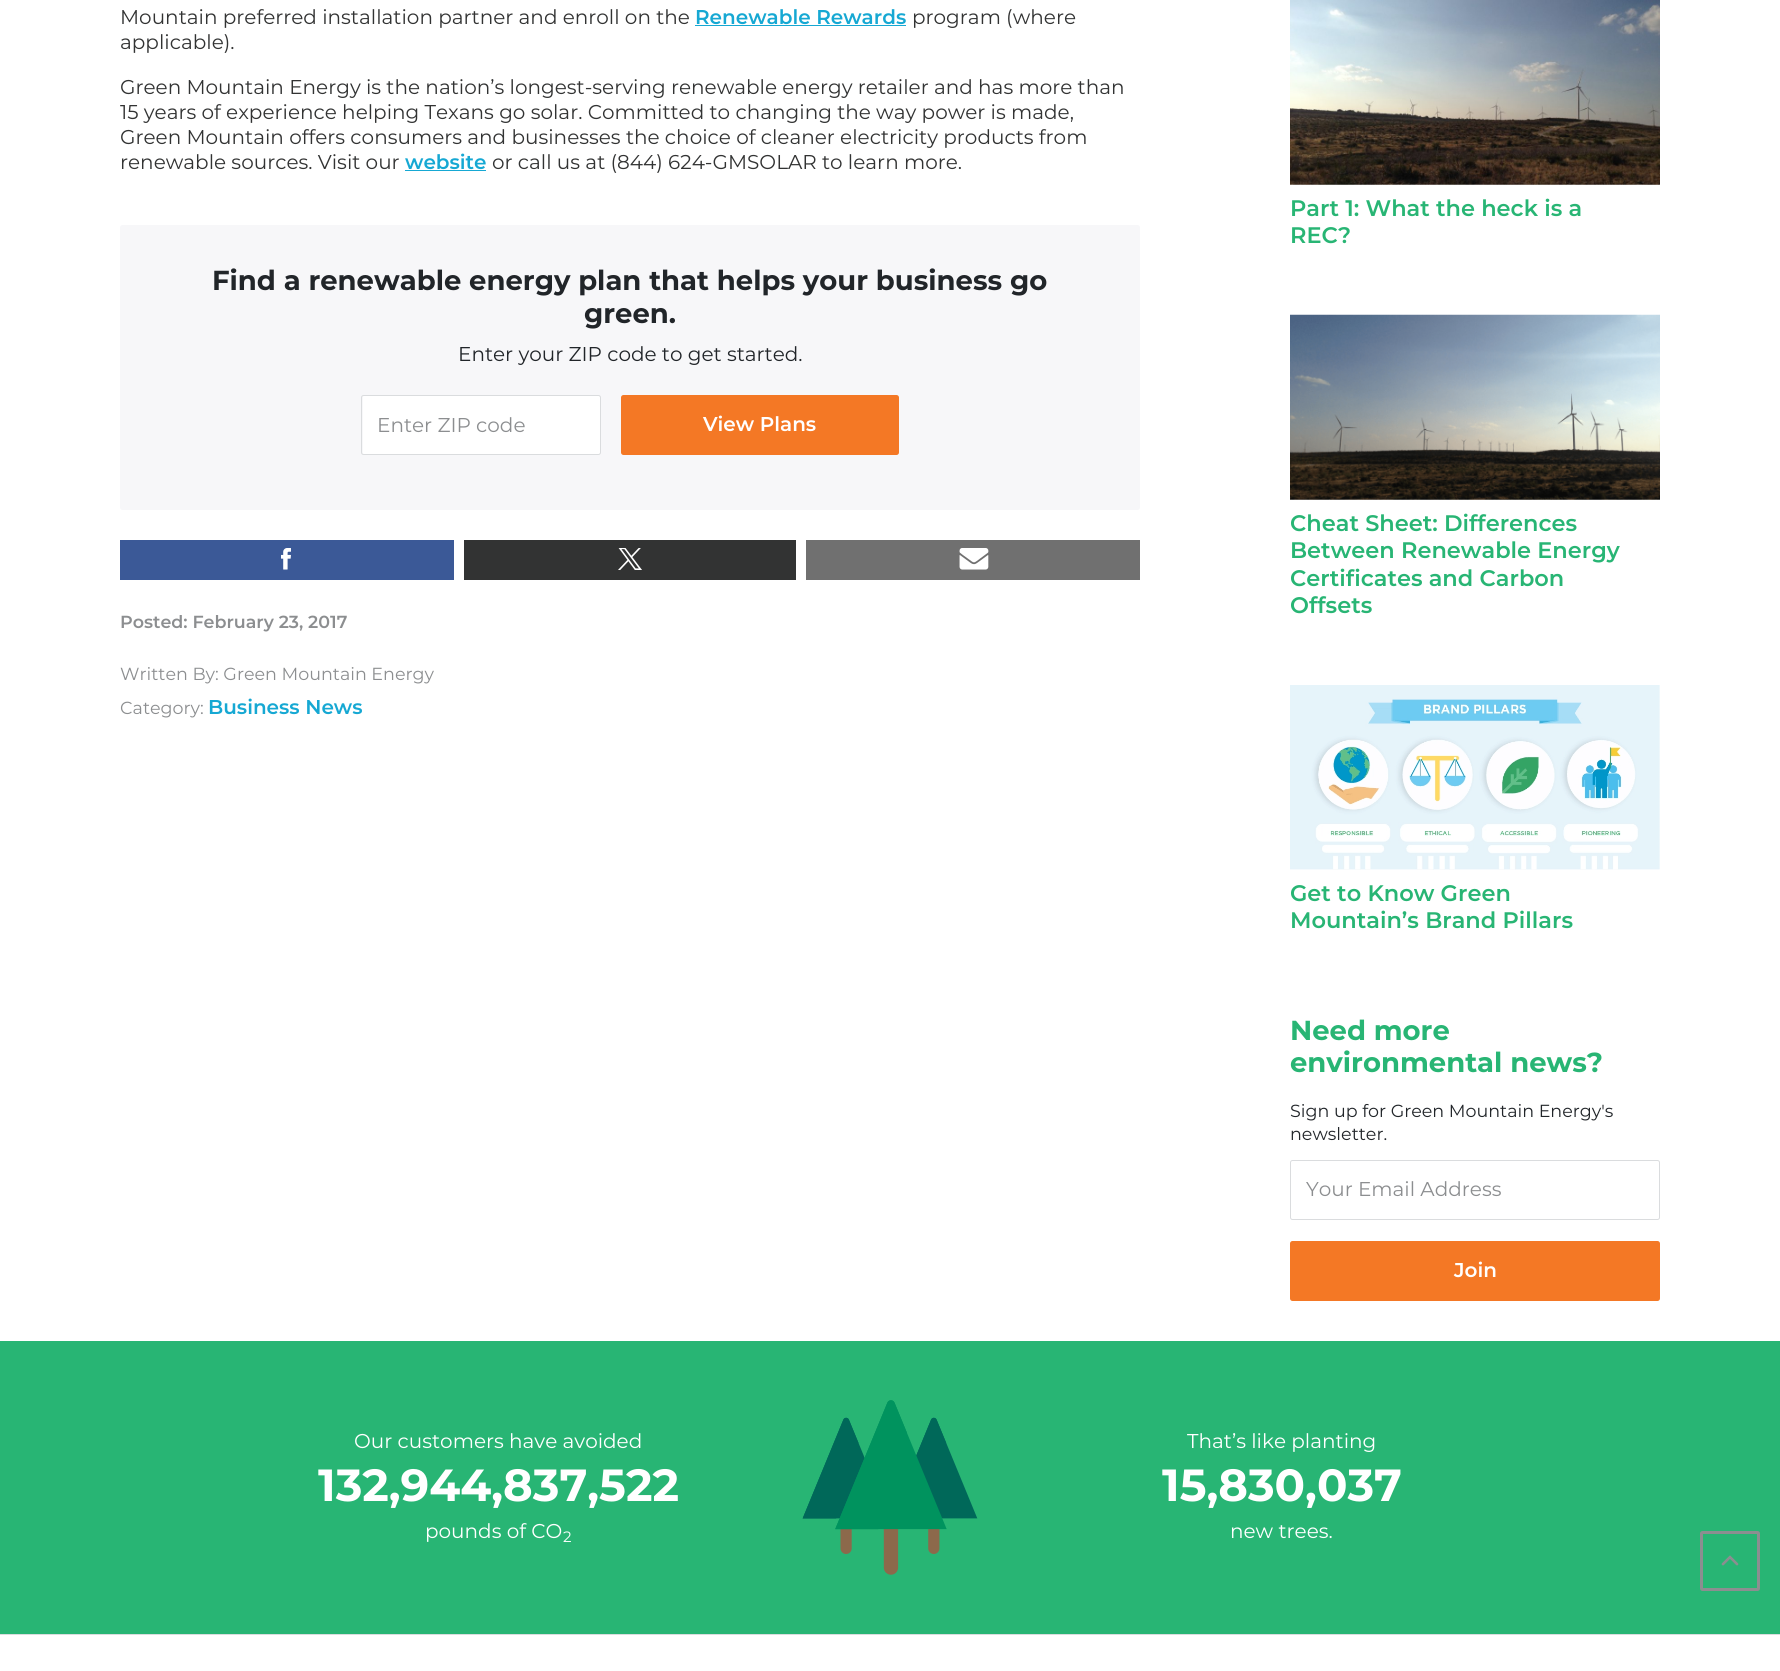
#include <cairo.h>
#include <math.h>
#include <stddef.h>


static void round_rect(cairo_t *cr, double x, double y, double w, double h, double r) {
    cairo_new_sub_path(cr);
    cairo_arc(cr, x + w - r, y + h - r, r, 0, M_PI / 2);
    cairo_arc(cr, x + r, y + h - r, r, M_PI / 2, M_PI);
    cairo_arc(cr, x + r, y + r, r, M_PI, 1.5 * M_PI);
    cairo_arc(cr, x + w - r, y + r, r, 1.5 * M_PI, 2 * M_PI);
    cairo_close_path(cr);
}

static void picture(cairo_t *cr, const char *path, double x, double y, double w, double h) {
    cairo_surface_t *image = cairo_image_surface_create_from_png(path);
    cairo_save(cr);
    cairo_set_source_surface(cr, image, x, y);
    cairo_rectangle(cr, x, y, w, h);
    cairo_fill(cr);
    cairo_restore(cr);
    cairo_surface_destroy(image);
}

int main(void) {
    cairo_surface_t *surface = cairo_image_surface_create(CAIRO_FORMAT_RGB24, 1780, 1671);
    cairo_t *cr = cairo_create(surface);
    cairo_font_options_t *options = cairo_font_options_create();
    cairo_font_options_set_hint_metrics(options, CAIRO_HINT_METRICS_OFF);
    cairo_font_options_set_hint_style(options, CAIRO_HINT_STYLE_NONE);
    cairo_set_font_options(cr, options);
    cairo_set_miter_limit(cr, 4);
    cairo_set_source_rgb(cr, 1, 1, 1);
    cairo_paint(cr);
    cairo_select_font_face(cr, "Montserrat", CAIRO_FONT_SLANT_NORMAL, CAIRO_FONT_WEIGHT_NORMAL);
    cairo_set_font_size(cr, 20);
    cairo_set_source_rgb(cr, 0.196, 0.2, 0.2);
    cairo_move_to(cr, 120, 24);
    cairo_show_text(cr, "Mountain preferred installation partner and enroll on the");
    cairo_select_font_face(cr, "Montserrat SemiBold", CAIRO_FONT_SLANT_NORMAL, CAIRO_FONT_WEIGHT_NORMAL);
    cairo_set_source_rgb(cr, 0.086, 0.659, 0.827);
    cairo_move_to(cr, 695, 24);
    cairo_show_text(cr, "Renewable Rewards");
    cairo_rectangle(cr, 695, 25, 211, 1);
    cairo_fill(cr);
    cairo_select_font_face(cr, "Montserrat", CAIRO_FONT_SLANT_NORMAL, CAIRO_FONT_WEIGHT_NORMAL);
    cairo_set_source_rgb(cr, 0.196, 0.2, 0.2);
    cairo_move_to(cr, 912, 24);
    cairo_show_text(cr, "program (where");
    cairo_move_to(cr, 120, 49);
    cairo_show_text(cr, "applicable).");
    cairo_move_to(cr, 120, 94);
    cairo_show_text(cr, "Green Mountain Energy is the nation’s longest-serving renewable energy retailer and has more than");
    cairo_move_to(cr, 120, 119);
    cairo_show_text(cr, "15 years of experience helping Texans go solar. Committed to changing the way power is made,");
    cairo_move_to(cr, 120, 144);
    cairo_show_text(cr, "Green Mountain offers consumers and businesses the choice of cleaner electricity products from");
    cairo_move_to(cr, 120, 169);
    cairo_show_text(cr, "renewable sources. Visit our");
    cairo_select_font_face(cr, "Montserrat SemiBold", CAIRO_FONT_SLANT_NORMAL, CAIRO_FONT_WEIGHT_NORMAL);
    cairo_set_source_rgb(cr, 0.086, 0.659, 0.827);
    cairo_move_to(cr, 405, 169);
    cairo_show_text(cr, "website");
    cairo_rectangle(cr, 405, 170, 81, 1);
    cairo_fill(cr);
    cairo_select_font_face(cr, "Montserrat", CAIRO_FONT_SLANT_NORMAL, CAIRO_FONT_WEIGHT_NORMAL);
    cairo_set_source_rgb(cr, 0.196, 0.2, 0.2);
    cairo_move_to(cr, 492, 169);
    cairo_show_text(cr, "or call us at (844) 624-GMSOLAR to learn more.");
    cairo_set_source_rgb(cr, 0.965, 0.965, 0.973);
    round_rect(cr, 120, 225, 1020, 285, 2.5);
    cairo_fill(cr);
    cairo_select_font_face(cr, "Montserrat", CAIRO_FONT_SLANT_NORMAL, CAIRO_FONT_WEIGHT_BOLD);
    cairo_set_font_size(cr, 27.5);
    cairo_set_source_rgb(cr, 0.129, 0.145, 0.161);
    cairo_move_to(cr, 212, 290);
    cairo_show_text(cr, "Find a renewable energy plan that helps your business go");
    cairo_move_to(cr, 584, 323);
    cairo_show_text(cr, "green.");
    cairo_select_font_face(cr, "Montserrat", CAIRO_FONT_SLANT_NORMAL, CAIRO_FONT_WEIGHT_NORMAL);
    cairo_set_font_size(cr, 20);
    cairo_move_to(cr, 458, 361);
    cairo_show_text(cr, "Enter your ZIP code to get started.");
    cairo_set_source_rgb(cr, 1, 1, 1);
    round_rect(cr, 363, 396, 237, 58, 1);
    cairo_fill(cr);
    round_rect(cr, 361.5, 395.5, 239, 59, 2);
    cairo_set_source_rgb(cr, 0.855, 0.863, 0.871);
    cairo_set_line_width(cr, 1);
    cairo_stroke(cr);
    cairo_set_source_rgb(cr, 0.549, 0.557, 0.565);
    cairo_move_to(cr, 377, 432);
    cairo_show_text(cr, "Enter ZIP code");
    cairo_set_source_rgb(cr, 0.957, 0.471, 0.145);
    round_rect(cr, 621, 395, 278, 60, 2.5);
    cairo_fill(cr);
    cairo_select_font_face(cr, "Montserrat SemiBold", CAIRO_FONT_SLANT_NORMAL, CAIRO_FONT_WEIGHT_NORMAL);
    cairo_set_source_rgb(cr, 1, 1, 1);
    cairo_move_to(cr, 703, 431);
    cairo_show_text(cr, "View Plans");
    cairo_set_source_rgb(cr, 0.231, 0.349, 0.592);
    cairo_rectangle(cr, 120, 540, 334, 40);
    cairo_fill(cr);
    picture(cr, "img1.png", 281, 548, 10, 22);
    cairo_set_source_rgb(cr, 0.196, 0.2, 0.2);
    cairo_rectangle(cr, 464, 540, 332, 40);
    cairo_fill(cr);
    picture(cr, "img2.png", 618, 548, 24, 22);
    cairo_set_source_rgb(cr, 0.439, 0.439, 0.439);
    cairo_rectangle(cr, 806, 540, 334, 40);
    cairo_fill(cr);
    picture(cr, "img3.png", 959, 548, 30, 22);
    cairo_set_font_size(cr, 17.5);
    cairo_set_source_rgb(cr, 0.549, 0.557, 0.565);
    cairo_move_to(cr, 120, 628);
    cairo_show_text(cr, "Posted: February 23, 2017");
    cairo_select_font_face(cr, "Montserrat", CAIRO_FONT_SLANT_NORMAL, CAIRO_FONT_WEIGHT_NORMAL);
    cairo_move_to(cr, 120, 680);
    cairo_show_text(cr, "Written By: Green Mountain Energy");
    cairo_move_to(cr, 120, 714);
    cairo_show_text(cr, "Category:");
    cairo_select_font_face(cr, "Montserrat SemiBold", CAIRO_FONT_SLANT_NORMAL, CAIRO_FONT_WEIGHT_NORMAL);
    cairo_set_font_size(cr, 20);
    cairo_set_source_rgb(cr, 0.086, 0.659, 0.827);
    cairo_move_to(cr, 208, 714);
    cairo_show_text(cr, "Business News");
    picture(cr, "img4.png", 1290, 0, 370, 185);
    cairo_set_font_size(cr, 22.5);
    cairo_set_source_rgb(cr, 0.157, 0.71, 0.455);
    cairo_move_to(cr, 1290, 216);
    cairo_show_text(cr, "Part 1: What the heck is a");
    cairo_move_to(cr, 1290, 243);
    cairo_show_text(cr, "REC?");
    picture(cr, "img5.png", 1290, 314, 370, 186);
    cairo_move_to(cr, 1290, 531);
    cairo_show_text(cr, "Cheat Sheet: Differences");
    cairo_move_to(cr, 1290, 558);
    cairo_show_text(cr, "Between Renewable Energy");
    cairo_move_to(cr, 1290, 586);
    cairo_show_text(cr, "Certificates and Carbon");
    cairo_move_to(cr, 1290, 613);
    cairo_show_text(cr, "Offsets");
    picture(cr, "img6.png", 1290, 685, 370, 185);
    cairo_move_to(cr, 1290, 901);
    cairo_show_text(cr, "Get to Know Green");
    cairo_move_to(cr, 1290, 928);
    cairo_show_text(cr, "Mountain’s Brand Pillars");
    cairo_select_font_face(cr, "Montserrat", CAIRO_FONT_SLANT_NORMAL, CAIRO_FONT_WEIGHT_BOLD);
    cairo_set_font_size(cr, 27.5);
    cairo_move_to(cr, 1290, 1040);
    cairo_show_text(cr, "Need more");
    cairo_move_to(cr, 1290, 1072);
    cairo_show_text(cr, "environmental news?");
    cairo_select_font_face(cr, "Montserrat", CAIRO_FONT_SLANT_NORMAL, CAIRO_FONT_WEIGHT_NORMAL);
    cairo_set_font_size(cr, 17.5);
    cairo_set_source_rgb(cr, 0.129, 0.145, 0.161);
    cairo_move_to(cr, 1290, 1117);
    cairo_show_text(cr, "Sign up for Green Mountain Energy's");
    cairo_move_to(cr, 1290, 1140);
    cairo_show_text(cr, "newsletter.");
    round_rect(cr, 1290.5, 1160.5, 369, 59, 2);
    cairo_set_source_rgb(cr, 0.855, 0.863, 0.871);
    cairo_stroke(cr);
    cairo_set_font_size(cr, 20);
    cairo_set_source_rgb(cr, 0.549, 0.557, 0.565);
    cairo_move_to(cr, 1306, 1196);
    cairo_show_text(cr, "Your Email Address");
    cairo_set_source_rgb(cr, 0.957, 0.471, 0.145);
    round_rect(cr, 1290, 1241, 370, 60, 2.5);
    cairo_fill(cr);
    cairo_select_font_face(cr, "Montserrat SemiBold", CAIRO_FONT_SLANT_NORMAL, CAIRO_FONT_WEIGHT_NORMAL);
    cairo_set_source_rgb(cr, 1, 1, 1);
    cairo_move_to(cr, 1454, 1277);
    cairo_show_text(cr, "Join");
    cairo_set_source_rgb(cr, 0.157, 0.71, 0.455);
    cairo_rectangle(cr, 0, 1341, 1780, 293);
    cairo_fill(cr);
    cairo_select_font_face(cr, "Montserrat", CAIRO_FONT_SLANT_NORMAL, CAIRO_FONT_WEIGHT_NORMAL);
    cairo_set_source_rgb(cr, 1, 1, 1);
    cairo_move_to(cr, 354, 1448);
    cairo_show_text(cr, "Our customers have avoided");
    cairo_select_font_face(cr, "Montserrat", CAIRO_FONT_SLANT_NORMAL, CAIRO_FONT_WEIGHT_BOLD);
    cairo_set_font_size(cr, 45);
    cairo_move_to(cr, 318, 1501);
    cairo_show_text(cr, "132,944,837,522");
    cairo_select_font_face(cr, "Montserrat", CAIRO_FONT_SLANT_NORMAL, CAIRO_FONT_WEIGHT_NORMAL);
    cairo_set_font_size(cr, 20);
    cairo_move_to(cr, 425, 1538);
    cairo_show_text(cr, "pounds of CO");
    cairo_set_font_size(cr, 15);
    cairo_move_to(cr, 563, 1542);
    cairo_show_text(cr, "2");
    picture(cr, "img7.png", 802, 1400, 176, 175);
    cairo_set_font_size(cr, 20);
    cairo_move_to(cr, 1187, 1448);
    cairo_show_text(cr, "That’s like planting");
    cairo_select_font_face(cr, "Montserrat", CAIRO_FONT_SLANT_NORMAL, CAIRO_FONT_WEIGHT_BOLD);
    cairo_set_font_size(cr, 45);
    cairo_move_to(cr, 1162, 1501);
    cairo_show_text(cr, "15,830,037");
    cairo_select_font_face(cr, "Montserrat", CAIRO_FONT_SLANT_NORMAL, CAIRO_FONT_WEIGHT_NORMAL);
    cairo_set_font_size(cr, 20);
    cairo_move_to(cr, 1230, 1538);
    cairo_show_text(cr, "new trees.");
    round_rect(cr, 1701.5, 1532.5, 57, 57, 1);
    cairo_set_source_rgb(cr, 0.549, 0.557, 0.565);
    cairo_set_line_width(cr, 3);
    cairo_stroke(cr);
    picture(cr, "img8.png", 1721, 1555, 18, 11);
    cairo_set_source_rgb(cr, 0.855, 0.863, 0.871);
    cairo_rectangle(cr, 0, 1634, 1780, 1);
    cairo_fill(cr);
    cairo_surface_write_to_png(surface, "page.png");
    cairo_font_options_destroy(options);
    cairo_destroy(cr);
    cairo_surface_destroy(surface);
    return 0;
}
